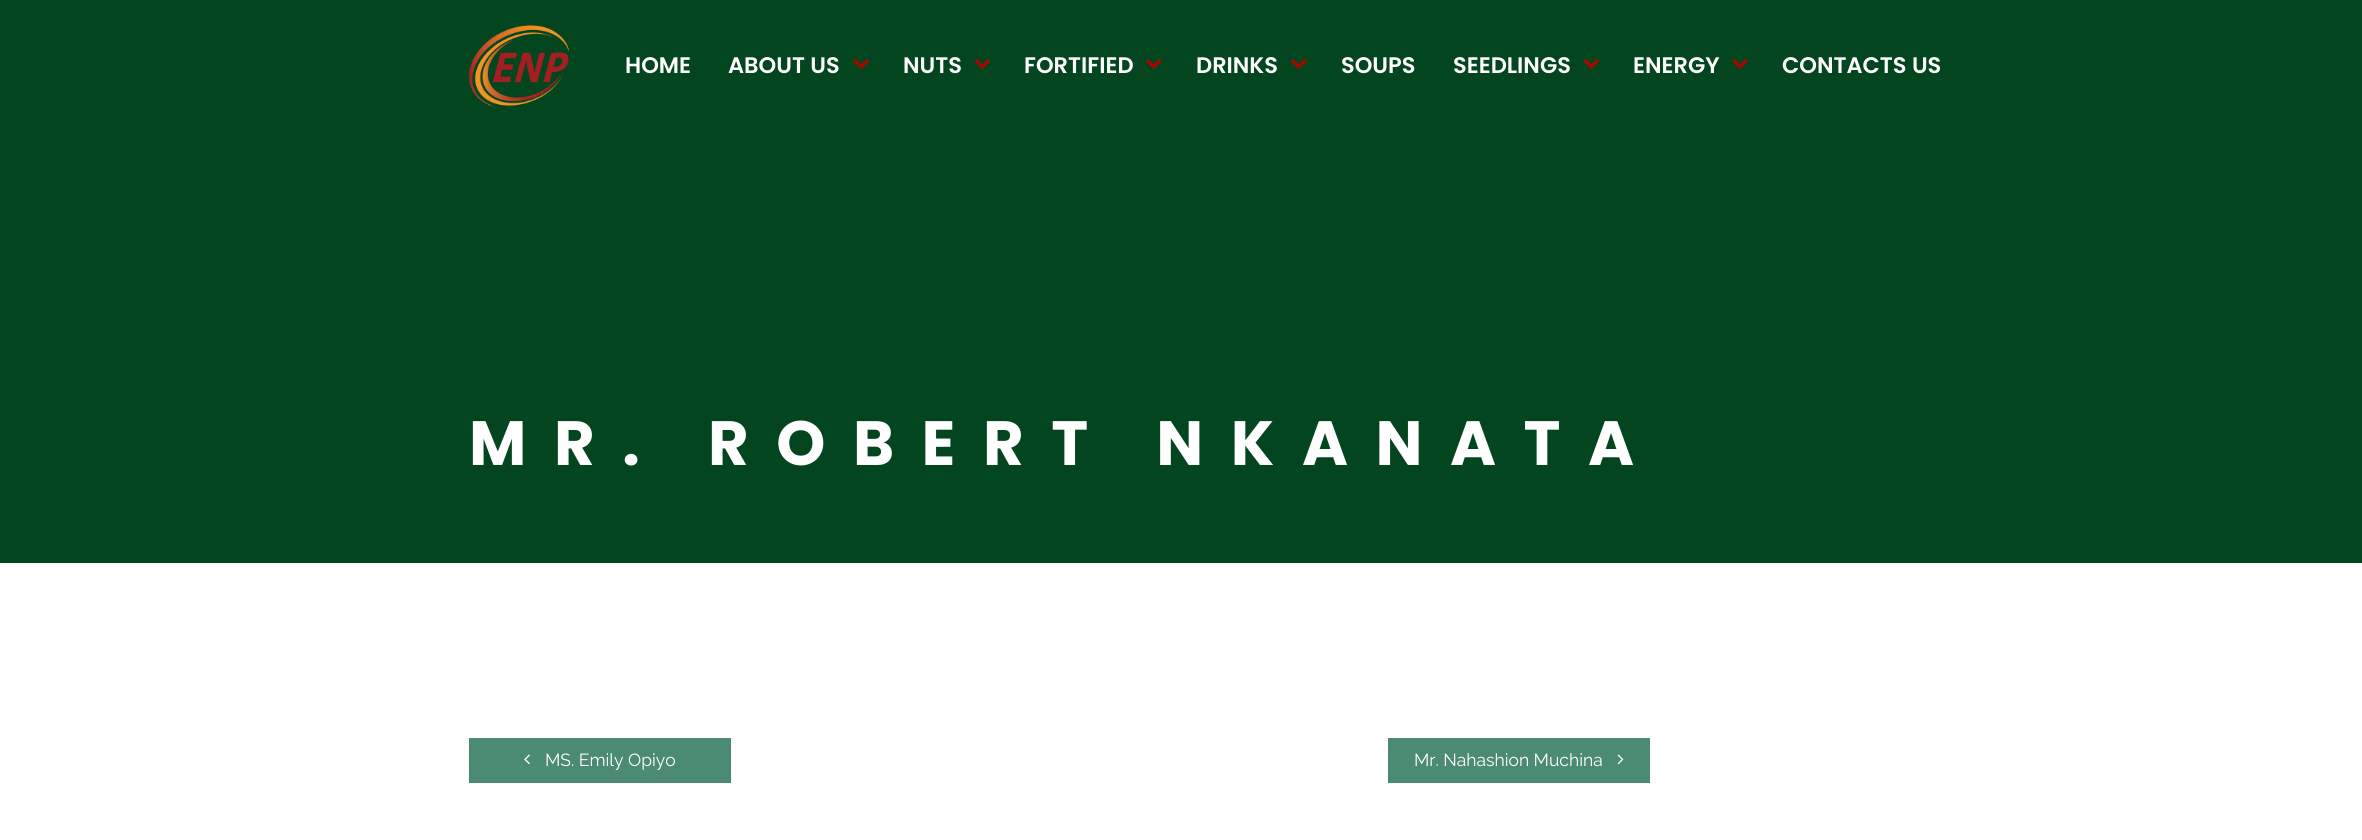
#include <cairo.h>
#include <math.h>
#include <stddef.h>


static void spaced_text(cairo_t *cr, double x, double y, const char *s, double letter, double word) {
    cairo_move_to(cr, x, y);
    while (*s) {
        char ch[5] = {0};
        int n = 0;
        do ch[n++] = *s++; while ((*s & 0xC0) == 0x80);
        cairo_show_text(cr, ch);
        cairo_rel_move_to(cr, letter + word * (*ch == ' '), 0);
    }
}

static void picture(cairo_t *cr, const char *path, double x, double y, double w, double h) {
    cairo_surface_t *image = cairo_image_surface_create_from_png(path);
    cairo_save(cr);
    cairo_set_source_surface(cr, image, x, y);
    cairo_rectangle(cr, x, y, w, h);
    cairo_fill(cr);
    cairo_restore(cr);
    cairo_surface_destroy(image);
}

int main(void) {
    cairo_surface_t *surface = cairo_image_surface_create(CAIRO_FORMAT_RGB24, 2362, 840);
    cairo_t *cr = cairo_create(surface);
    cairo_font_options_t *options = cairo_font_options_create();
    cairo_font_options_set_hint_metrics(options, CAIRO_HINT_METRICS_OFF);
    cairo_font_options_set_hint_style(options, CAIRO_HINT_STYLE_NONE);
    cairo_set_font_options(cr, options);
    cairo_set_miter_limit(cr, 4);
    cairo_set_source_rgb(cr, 1, 1, 1);
    cairo_paint(cr);
    cairo_set_source_rgb(cr, 0.012, 0.271, 0.122);
    cairo_rectangle(cr, 0, 0, 2362, 563);
    cairo_fill(cr);
    picture(cr, "img1.png", 468, 25, 101, 82);
    cairo_select_font_face(cr, "Poppins SemiBold", CAIRO_FONT_SLANT_NORMAL, CAIRO_FONT_WEIGHT_NORMAL);
    cairo_set_font_size(cr, 22.5);
    cairo_set_source_rgb(cr, 1, 1, 1);
    cairo_move_to(cr, 625, 73);
    cairo_show_text(cr, "HOME");
    cairo_move_to(cr, 728, 73);
    cairo_show_text(cr, "ABOUT US");
    picture(cr, "img2.png", 853, 59, 17, 10);
    cairo_move_to(cr, 903, 73);
    cairo_show_text(cr, "NUTS");
    picture(cr, "img3.png", 974, 59, 17, 10);
    cairo_move_to(cr, 1024, 73);
    cairo_show_text(cr, "FORTIFIED");
    picture(cr, "img4.png", 1145, 59, 17, 10);
    cairo_move_to(cr, 1196, 73);
    cairo_show_text(cr, "DRINKS");
    picture(cr, "img4.png", 1290, 59, 17, 10);
    cairo_move_to(cr, 1341, 73);
    cairo_show_text(cr, "SOUPS");
    cairo_move_to(cr, 1453, 73);
    cairo_show_text(cr, "SEEDLINGS");
    picture(cr, "img2.png", 1583, 59, 17, 10);
    cairo_move_to(cr, 1633, 73);
    cairo_show_text(cr, "ENERGY");
    picture(cr, "img5.png", 1732, 59, 16, 10);
    cairo_move_to(cr, 1782, 73);
    cairo_show_text(cr, "CONTACTS US");
    cairo_select_font_face(cr, "Poppins", CAIRO_FONT_SLANT_NORMAL, CAIRO_FONT_WEIGHT_BOLD);
    cairo_set_font_size(cr, 62.5);
    spaced_text(cr, 469, 465, "MR. ROBERT NKANATA", 27.5, 0);
    cairo_set_source_rgb(cr, 0.29, 0.545, 0.443);
    cairo_rectangle(cr, 469, 738, 262, 45);
    cairo_fill(cr);
    picture(cr, "img6.png", 524, 754, 6, 11);
    cairo_select_font_face(cr, "Raleway Thin", CAIRO_FONT_SLANT_NORMAL, CAIRO_FONT_WEIGHT_NORMAL);
    cairo_set_font_size(cr, 17.5);
    cairo_set_source_rgb(cr, 1, 1, 1);
    cairo_move_to(cr, 545, 766);
    cairo_show_text(cr, "MS. Emily Opiyo");
    cairo_set_source_rgb(cr, 0.29, 0.545, 0.443);
    cairo_rectangle(cr, 1388, 738, 262, 45);
    cairo_fill(cr);
    cairo_set_source_rgb(cr, 1, 1, 1);
    cairo_move_to(cr, 1414, 766);
    cairo_show_text(cr, "Mr. Nahashion Muchina");
    picture(cr, "img7.png", 1617, 754, 7, 11);
    cairo_surface_write_to_png(surface, "page.png");
    cairo_font_options_destroy(options);
    cairo_destroy(cr);
    cairo_surface_destroy(surface);
    return 0;
}
